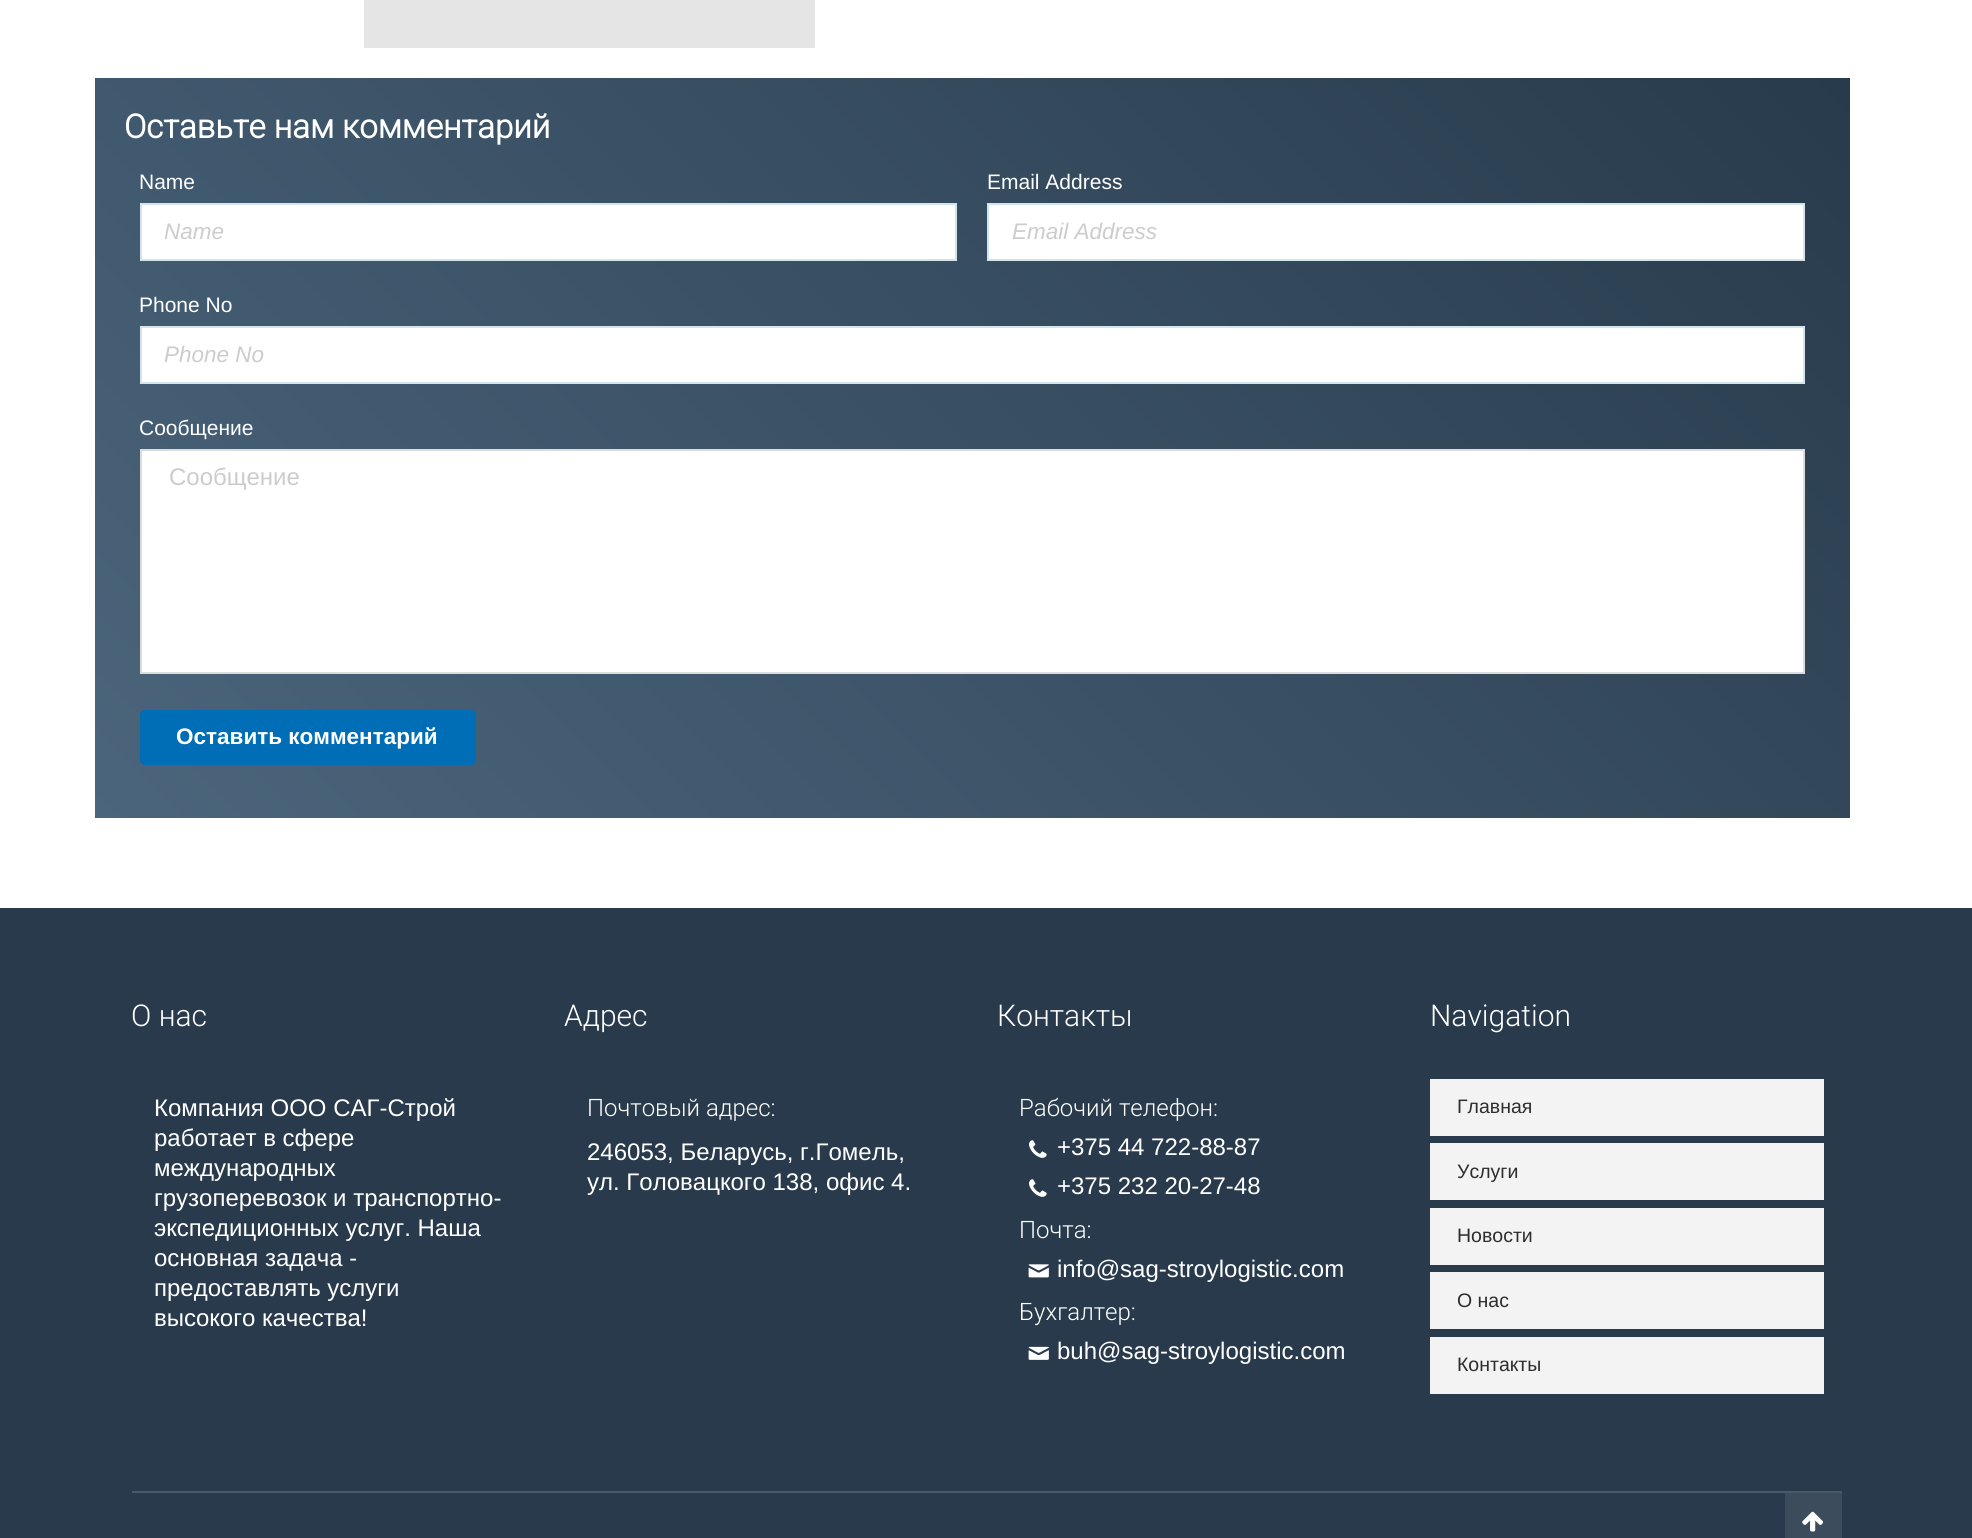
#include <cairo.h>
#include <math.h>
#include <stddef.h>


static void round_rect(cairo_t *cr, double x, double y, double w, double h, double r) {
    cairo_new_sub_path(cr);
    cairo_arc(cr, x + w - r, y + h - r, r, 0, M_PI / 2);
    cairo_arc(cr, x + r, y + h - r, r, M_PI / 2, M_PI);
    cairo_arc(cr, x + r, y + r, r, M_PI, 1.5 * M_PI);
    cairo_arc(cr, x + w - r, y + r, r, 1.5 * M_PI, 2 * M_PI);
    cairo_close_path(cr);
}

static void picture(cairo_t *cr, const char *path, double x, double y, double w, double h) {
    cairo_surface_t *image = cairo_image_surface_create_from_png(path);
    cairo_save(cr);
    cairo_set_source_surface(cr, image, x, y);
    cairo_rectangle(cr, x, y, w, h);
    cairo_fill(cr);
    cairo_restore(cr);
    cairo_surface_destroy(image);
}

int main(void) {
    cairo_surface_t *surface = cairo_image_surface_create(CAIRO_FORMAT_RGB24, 1972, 1538);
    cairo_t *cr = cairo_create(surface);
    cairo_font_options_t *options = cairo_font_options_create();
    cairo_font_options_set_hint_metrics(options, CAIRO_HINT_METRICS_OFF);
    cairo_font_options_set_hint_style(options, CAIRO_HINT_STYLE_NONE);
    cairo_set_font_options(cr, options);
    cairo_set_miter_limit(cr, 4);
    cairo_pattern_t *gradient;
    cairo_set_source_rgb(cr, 1, 1, 1);
    cairo_paint(cr);
    cairo_set_source_rgb(cr, 0.898, 0.898, 0.898);
    cairo_rectangle(cr, 364, 0, 451, 48);
    cairo_fill(cr);
    gradient = cairo_pattern_create_linear(348, 1071, 1596, -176);
    cairo_pattern_add_color_stop_rgba(gradient, 0, 0.294, 0.396, 0.486, 1);
    cairo_pattern_add_color_stop_rgba(gradient, 1, 0.157, 0.231, 0.298, 1);
    cairo_set_source(cr, gradient);
    cairo_pattern_destroy(gradient);
    cairo_rectangle(cr, 95, 78, 1755, 740);
    cairo_fill(cr);
    cairo_select_font_face(cr, "Roboto", CAIRO_FONT_SLANT_NORMAL, CAIRO_FONT_WEIGHT_BOLD);
    cairo_set_font_size(cr, 33);
    cairo_set_source_rgb(cr, 1, 1, 1);
    cairo_move_to(cr, 124, 138);
    cairo_show_text(cr, "Оставьте нам комментарий");
    cairo_select_font_face(cr, "Liberation Sans", CAIRO_FONT_SLANT_NORMAL, CAIRO_FONT_WEIGHT_NORMAL);
    cairo_set_font_size(cr, 21);
    cairo_move_to(cr, 139, 189);
    cairo_show_text(cr, "Name");
    cairo_rectangle(cr, 141, 204, 815, 56);
    cairo_fill_preserve(cr);
    cairo_set_source_rgb(cr, 0.827, 0.898, 0.922);
    cairo_stroke(cr);
    cairo_select_font_face(cr, "Liberation Sans", CAIRO_FONT_SLANT_ITALIC, CAIRO_FONT_WEIGHT_NORMAL);
    cairo_set_font_size(cr, 22.5);
    cairo_set_source_rgb(cr, 0.8, 0.8, 0.8);
    cairo_move_to(cr, 164, 239);
    cairo_show_text(cr, "Name");
    cairo_select_font_face(cr, "Liberation Sans", CAIRO_FONT_SLANT_NORMAL, CAIRO_FONT_WEIGHT_NORMAL);
    cairo_set_font_size(cr, 21);
    cairo_set_source_rgb(cr, 1, 1, 1);
    cairo_move_to(cr, 987, 189);
    cairo_show_text(cr, "Email Address");
    cairo_rectangle(cr, 988, 204, 816, 56);
    cairo_fill_preserve(cr);
    cairo_set_source_rgb(cr, 0.827, 0.898, 0.922);
    cairo_stroke(cr);
    cairo_select_font_face(cr, "Liberation Sans", CAIRO_FONT_SLANT_ITALIC, CAIRO_FONT_WEIGHT_NORMAL);
    cairo_set_font_size(cr, 22.5);
    cairo_set_source_rgb(cr, 0.8, 0.8, 0.8);
    cairo_move_to(cr, 1012, 239);
    cairo_show_text(cr, "Email Address");
    cairo_select_font_face(cr, "Liberation Sans", CAIRO_FONT_SLANT_NORMAL, CAIRO_FONT_WEIGHT_NORMAL);
    cairo_set_font_size(cr, 21);
    cairo_set_source_rgb(cr, 1, 1, 1);
    cairo_move_to(cr, 139, 312);
    cairo_show_text(cr, "Phone No");
    cairo_rectangle(cr, 141, 327, 1663, 56);
    cairo_fill_preserve(cr);
    cairo_set_source_rgb(cr, 0.827, 0.898, 0.922);
    cairo_stroke(cr);
    cairo_select_font_face(cr, "Liberation Sans", CAIRO_FONT_SLANT_ITALIC, CAIRO_FONT_WEIGHT_NORMAL);
    cairo_set_font_size(cr, 22.5);
    cairo_set_source_rgb(cr, 0.8, 0.8, 0.8);
    cairo_move_to(cr, 164, 362);
    cairo_show_text(cr, "Phone No");
    cairo_select_font_face(cr, "Liberation Sans", CAIRO_FONT_SLANT_NORMAL, CAIRO_FONT_WEIGHT_NORMAL);
    cairo_set_font_size(cr, 21);
    cairo_set_source_rgb(cr, 1, 1, 1);
    cairo_move_to(cr, 139, 435);
    cairo_show_text(cr, "Сообщение");
    cairo_rectangle(cr, 141, 450, 1663, 223);
    cairo_fill_preserve(cr);
    cairo_set_source_rgb(cr, 0.863, 0.863, 0.863);
    cairo_stroke(cr);
    cairo_set_font_size(cr, 24);
    cairo_set_source_rgb(cr, 0.8, 0.8, 0.8);
    cairo_move_to(cr, 169, 485);
    cairo_show_text(cr, "Сообщение");
    cairo_set_source_rgb(cr, 0, 0.427, 0.718);
    round_rect(cr, 140, 710, 336, 55, 5);
    cairo_fill(cr);
    cairo_select_font_face(cr, "Liberation Sans", CAIRO_FONT_SLANT_NORMAL, CAIRO_FONT_WEIGHT_BOLD);
    cairo_set_font_size(cr, 22.5);
    cairo_set_source_rgb(cr, 1, 1, 1);
    cairo_move_to(cr, 176, 744);
    cairo_show_text(cr, "Оставить комментарий");
    cairo_set_source_rgb(cr, 0.157, 0.227, 0.294);
    cairo_rectangle(cr, 0, 908, 1972, 630);
    cairo_fill(cr);
    cairo_select_font_face(cr, "Roboto Light", CAIRO_FONT_SLANT_NORMAL, CAIRO_FONT_WEIGHT_NORMAL);
    cairo_set_font_size(cr, 30);
    cairo_set_source_rgb(cr, 1, 1, 1);
    cairo_move_to(cr, 131, 1026);
    cairo_show_text(cr, "О нас");
    cairo_select_font_face(cr, "Liberation Sans", CAIRO_FONT_SLANT_NORMAL, CAIRO_FONT_WEIGHT_NORMAL);
    cairo_set_font_size(cr, 24);
    cairo_move_to(cr, 154, 1116);
    cairo_show_text(cr, "Компания ООО САГ-Строй");
    cairo_move_to(cr, 154, 1146);
    cairo_show_text(cr, "работает в сфере");
    cairo_move_to(cr, 154, 1176);
    cairo_show_text(cr, "международных");
    cairo_move_to(cr, 154, 1206);
    cairo_show_text(cr, "грузоперевозок и транспортно-");
    cairo_move_to(cr, 154, 1236);
    cairo_show_text(cr, "экспедиционных услуг. Наша");
    cairo_move_to(cr, 154, 1266);
    cairo_show_text(cr, "основная задача -");
    cairo_move_to(cr, 154, 1296);
    cairo_show_text(cr, "предоставлять услуги");
    cairo_move_to(cr, 154, 1326);
    cairo_show_text(cr, "высокого качества!");
    cairo_select_font_face(cr, "Roboto Light", CAIRO_FONT_SLANT_NORMAL, CAIRO_FONT_WEIGHT_NORMAL);
    cairo_set_font_size(cr, 30);
    cairo_move_to(cr, 564, 1026);
    cairo_show_text(cr, "Адрес");
    cairo_set_font_size(cr, 24);
    cairo_move_to(cr, 587, 1116);
    cairo_show_text(cr, "Почтовый адрес:");
    cairo_select_font_face(cr, "Liberation Sans", CAIRO_FONT_SLANT_NORMAL, CAIRO_FONT_WEIGHT_NORMAL);
    cairo_move_to(cr, 587, 1160);
    cairo_show_text(cr, "246053, Беларусь, г.Гомель,");
    cairo_move_to(cr, 587, 1190);
    cairo_show_text(cr, "ул. Головацкого 138, офис 4.");
    cairo_select_font_face(cr, "Roboto Light", CAIRO_FONT_SLANT_NORMAL, CAIRO_FONT_WEIGHT_NORMAL);
    cairo_set_font_size(cr, 30);
    cairo_move_to(cr, 997, 1026);
    cairo_show_text(cr, "Контакты");
    cairo_set_font_size(cr, 24);
    cairo_move_to(cr, 1019, 1116);
    cairo_show_text(cr, "Рабочий телефон:");
    picture(cr, "img1.png", 1029, 1140, 18, 18);
    cairo_select_font_face(cr, "Liberation Sans", CAIRO_FONT_SLANT_NORMAL, CAIRO_FONT_WEIGHT_NORMAL);
    cairo_move_to(cr, 1057, 1155);
    cairo_show_text(cr, "+375 44 722-88-87");
    picture(cr, "img1.png", 1029, 1179, 18, 18);
    cairo_move_to(cr, 1057, 1194);
    cairo_show_text(cr, "+375 232 20-27-48");
    cairo_select_font_face(cr, "Roboto Light", CAIRO_FONT_SLANT_NORMAL, CAIRO_FONT_WEIGHT_NORMAL);
    cairo_move_to(cr, 1019, 1238);
    cairo_show_text(cr, "Почта:");
    picture(cr, "img2.png", 1028, 1264, 21, 14);
    cairo_select_font_face(cr, "Liberation Sans", CAIRO_FONT_SLANT_NORMAL, CAIRO_FONT_WEIGHT_NORMAL);
    cairo_move_to(cr, 1057, 1277);
    cairo_show_text(cr, "info@sag-stroylogistic.com");
    cairo_select_font_face(cr, "Roboto Light", CAIRO_FONT_SLANT_NORMAL, CAIRO_FONT_WEIGHT_NORMAL);
    cairo_move_to(cr, 1019, 1320);
    cairo_show_text(cr, "Бухгалтер:");
    picture(cr, "img3.png", 1028, 1346, 21, 14);
    cairo_select_font_face(cr, "Liberation Sans", CAIRO_FONT_SLANT_NORMAL, CAIRO_FONT_WEIGHT_NORMAL);
    cairo_move_to(cr, 1057, 1359);
    cairo_show_text(cr, "buh@sag-stroylogistic.com");
    cairo_select_font_face(cr, "Roboto Light", CAIRO_FONT_SLANT_NORMAL, CAIRO_FONT_WEIGHT_NORMAL);
    cairo_set_font_size(cr, 30);
    cairo_move_to(cr, 1430, 1026);
    cairo_show_text(cr, "Navigation");
    cairo_set_source_rgb(cr, 0.953, 0.953, 0.953);
    cairo_rectangle(cr, 1430, 1079, 394, 57);
    cairo_fill(cr);
    cairo_select_font_face(cr, "Liberation Sans", CAIRO_FONT_SLANT_NORMAL, CAIRO_FONT_WEIGHT_NORMAL);
    cairo_set_font_size(cr, 19.5);
    cairo_set_source_rgb(cr, 0.176, 0.176, 0.176);
    cairo_move_to(cr, 1457, 1113);
    cairo_show_text(cr, "Главная");
    cairo_set_source_rgb(cr, 0.953, 0.953, 0.953);
    cairo_rectangle(cr, 1430, 1143, 394, 57);
    cairo_fill(cr);
    cairo_set_source_rgb(cr, 0.176, 0.176, 0.176);
    cairo_move_to(cr, 1457, 1178);
    cairo_show_text(cr, "Услуги");
    cairo_set_source_rgb(cr, 0.953, 0.953, 0.953);
    cairo_rectangle(cr, 1430, 1208, 394, 57);
    cairo_fill(cr);
    cairo_set_source_rgb(cr, 0.176, 0.176, 0.176);
    cairo_move_to(cr, 1457, 1242);
    cairo_show_text(cr, "Новости");
    cairo_set_source_rgb(cr, 0.953, 0.953, 0.953);
    cairo_rectangle(cr, 1430, 1272, 394, 57);
    cairo_fill(cr);
    cairo_set_source_rgb(cr, 0.176, 0.176, 0.176);
    cairo_move_to(cr, 1457, 1307);
    cairo_show_text(cr, "О нас");
    cairo_set_source_rgb(cr, 0.953, 0.953, 0.953);
    cairo_rectangle(cr, 1430, 1337, 394, 57);
    cairo_fill(cr);
    cairo_set_source_rgb(cr, 0.176, 0.176, 0.176);
    cairo_move_to(cr, 1457, 1371);
    cairo_show_text(cr, "Контакты");
    cairo_set_source_rgb(cr, 0.278, 0.349, 0.416);
    cairo_rectangle(cr, 132, 1491, 1710, 2);
    cairo_fill(cr);
    cairo_set_source_rgb(cr, 0.235, 0.298, 0.361);
    cairo_rectangle(cr, 1785, 1493, 57, 45);
    cairo_fill(cr);
    picture(cr, "img4.png", 1802, 1511, 22, 21);
    cairo_surface_write_to_png(surface, "page.png");
    cairo_font_options_destroy(options);
    cairo_destroy(cr);
    cairo_surface_destroy(surface);
    return 0;
}
